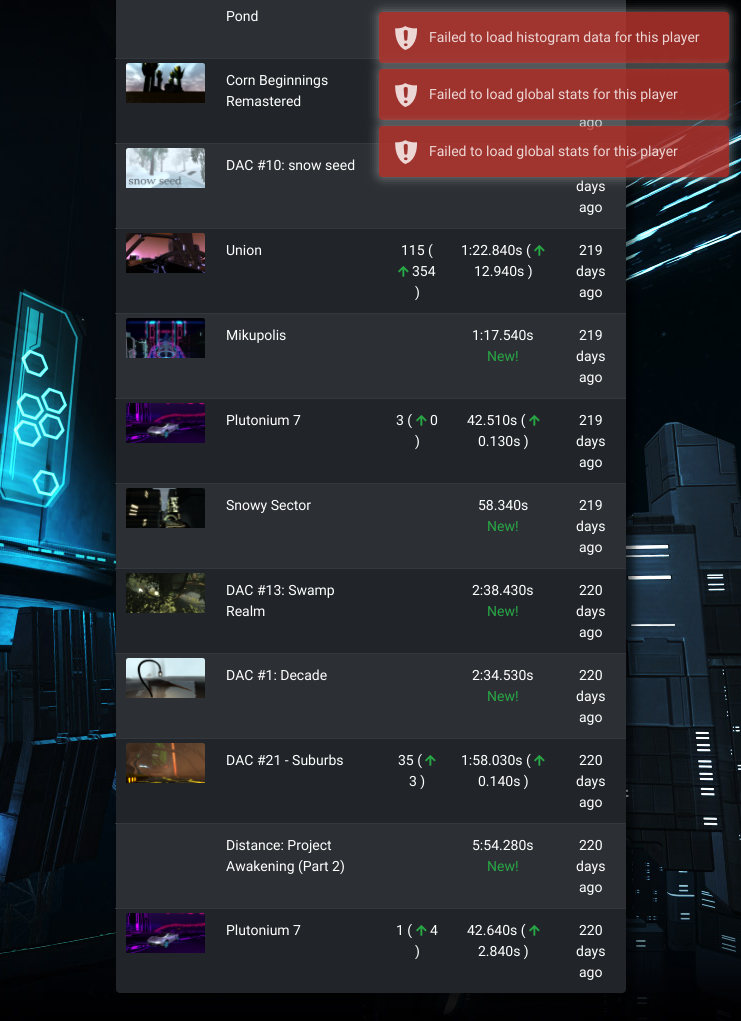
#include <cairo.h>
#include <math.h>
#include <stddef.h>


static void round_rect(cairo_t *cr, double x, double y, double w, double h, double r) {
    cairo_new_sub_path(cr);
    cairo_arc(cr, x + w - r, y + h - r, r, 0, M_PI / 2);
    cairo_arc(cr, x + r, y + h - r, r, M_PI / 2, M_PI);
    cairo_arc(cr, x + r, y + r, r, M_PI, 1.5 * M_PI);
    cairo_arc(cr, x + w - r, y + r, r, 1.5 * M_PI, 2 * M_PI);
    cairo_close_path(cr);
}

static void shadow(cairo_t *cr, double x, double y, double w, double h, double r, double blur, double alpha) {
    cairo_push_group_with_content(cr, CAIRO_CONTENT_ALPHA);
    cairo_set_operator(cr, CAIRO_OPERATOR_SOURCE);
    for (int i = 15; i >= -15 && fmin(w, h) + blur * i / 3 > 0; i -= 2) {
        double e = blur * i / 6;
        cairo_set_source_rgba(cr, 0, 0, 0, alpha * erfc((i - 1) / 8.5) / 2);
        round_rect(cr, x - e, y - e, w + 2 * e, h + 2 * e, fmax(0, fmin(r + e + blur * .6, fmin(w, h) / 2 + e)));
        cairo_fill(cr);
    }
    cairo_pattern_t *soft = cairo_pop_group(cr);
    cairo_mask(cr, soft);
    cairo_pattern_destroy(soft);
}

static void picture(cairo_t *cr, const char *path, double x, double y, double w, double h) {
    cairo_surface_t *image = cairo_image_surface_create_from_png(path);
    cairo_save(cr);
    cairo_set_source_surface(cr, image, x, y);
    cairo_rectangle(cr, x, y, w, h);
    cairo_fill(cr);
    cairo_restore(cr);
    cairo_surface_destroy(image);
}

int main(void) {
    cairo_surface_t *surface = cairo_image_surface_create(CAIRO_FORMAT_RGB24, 741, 1021);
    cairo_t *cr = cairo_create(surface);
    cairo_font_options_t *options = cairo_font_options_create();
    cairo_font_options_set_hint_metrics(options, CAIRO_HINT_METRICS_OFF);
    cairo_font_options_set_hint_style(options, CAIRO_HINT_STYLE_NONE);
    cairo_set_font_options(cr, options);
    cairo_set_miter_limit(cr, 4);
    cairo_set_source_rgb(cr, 1, 1, 1);
    cairo_paint(cr);
    picture(cr, "img1.png", 0, 0, 741, 1021);
    cairo_set_source_rgb(cr, 0, 0, 0);
    shadow(cr, 118, -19, 516, 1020, 7, 4, 0.6);
    cairo_set_source_rgb(cr, 0.129, 0.145, 0.161);
    round_rect(cr, 116, -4, 510, 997, 4);
    cairo_fill(cr);
    cairo_set_source_rgb(cr, 0.173, 0.188, 0.204);
    cairo_rectangle(cr, 116, 0, 510, 58);
    cairo_fill(cr);
    cairo_select_font_face(cr, "Roboto", CAIRO_FONT_SLANT_NORMAL, CAIRO_FONT_WEIGHT_NORMAL);
    cairo_set_font_size(cr, 14);
    cairo_set_source_rgb(cr, 1, 1, 1);
    cairo_move_to(cr, 226, 21);
    cairo_show_text(cr, "Pond");
    picture(cr, "img2.png", 126, 63, 79, 40);
    cairo_move_to(cr, 226, 85);
    cairo_show_text(cr, "Corn Beginnings");
    cairo_move_to(cr, 226, 106);
    cairo_show_text(cr, "Remastered");
    cairo_set_source_rgb(cr, 0.196, 0.22, 0.243);
    cairo_rectangle(cr, 115, 58, 511, 1);
    cairo_fill(cr);
    cairo_set_source_rgb(cr, 1, 1, 1);
    cairo_move_to(cr, 579, 127);
    cairo_show_text(cr, "ago");
    cairo_set_source_rgb(cr, 0.173, 0.188, 0.204);
    cairo_rectangle(cr, 116, 144, 510, 84);
    cairo_fill(cr);
    picture(cr, "img3.png", 126, 148, 79, 40);
    cairo_set_source_rgb(cr, 1, 1, 1);
    cairo_move_to(cr, 226, 170);
    cairo_show_text(cr, "DAC #10: snow seed");
    cairo_set_source_rgb(cr, 0.196, 0.22, 0.243);
    cairo_rectangle(cr, 115, 143, 511, 1);
    cairo_fill(cr);
    cairo_set_source_rgb(cr, 1, 1, 1);
    cairo_move_to(cr, 576, 191);
    cairo_show_text(cr, "days");
    cairo_move_to(cr, 579, 212);
    cairo_show_text(cr, "ago");
    picture(cr, "img4.png", 126, 233, 79, 40);
    cairo_move_to(cr, 226, 255);
    cairo_show_text(cr, "Union");
    cairo_move_to(cr, 401, 255);
    cairo_show_text(cr, "115 (");
    picture(cr, "img5.png", 398, 266, 11, 11);
    cairo_move_to(cr, 412, 276);
    cairo_show_text(cr, "354");
    cairo_move_to(cr, 415, 297);
    cairo_show_text(cr, ")");
    cairo_move_to(cr, 461, 255);
    cairo_show_text(cr, "1:22.840s (");
    picture(cr, "img5.png", 534, 245, 11, 11);
    cairo_move_to(cr, 474, 276);
    cairo_show_text(cr, "12.940s )");
    cairo_set_source_rgb(cr, 0.196, 0.22, 0.243);
    cairo_rectangle(cr, 115, 228, 511, 1);
    cairo_fill(cr);
    cairo_set_source_rgb(cr, 1, 1, 1);
    cairo_move_to(cr, 579, 255);
    cairo_show_text(cr, "219");
    cairo_move_to(cr, 576, 276);
    cairo_show_text(cr, "days");
    cairo_move_to(cr, 579, 297);
    cairo_show_text(cr, "ago");
    cairo_set_source_rgb(cr, 0.173, 0.188, 0.204);
    cairo_rectangle(cr, 116, 314, 510, 84);
    cairo_fill(cr);
    picture(cr, "img6.png", 126, 318, 79, 40);
    cairo_set_source_rgb(cr, 1, 1, 1);
    cairo_move_to(cr, 226, 340);
    cairo_show_text(cr, "Mikupolis");
    cairo_move_to(cr, 472, 340);
    cairo_show_text(cr, "1:17.540s");
    cairo_set_source_rgb(cr, 0.157, 0.655, 0.271);
    cairo_move_to(cr, 487, 361);
    cairo_show_text(cr, "New!");
    cairo_set_source_rgb(cr, 0.196, 0.22, 0.243);
    cairo_rectangle(cr, 115, 313, 511, 1);
    cairo_fill(cr);
    cairo_set_source_rgb(cr, 1, 1, 1);
    cairo_move_to(cr, 579, 340);
    cairo_show_text(cr, "219");
    cairo_move_to(cr, 576, 361);
    cairo_show_text(cr, "days");
    cairo_move_to(cr, 579, 382);
    cairo_show_text(cr, "ago");
    picture(cr, "img7.png", 126, 403, 79, 40);
    cairo_move_to(cr, 226, 425);
    cairo_show_text(cr, "Plutonium 7");
    cairo_move_to(cr, 396, 425);
    cairo_show_text(cr, "3 (");
    picture(cr, "img5.png", 416, 415, 11, 11);
    cairo_move_to(cr, 430, 425);
    cairo_show_text(cr, "0");
    cairo_move_to(cr, 415, 446);
    cairo_show_text(cr, ")");
    cairo_move_to(cr, 467, 425);
    cairo_show_text(cr, "42.510s (");
    picture(cr, "img5.png", 529, 415, 11, 11);
    cairo_move_to(cr, 478, 446);
    cairo_show_text(cr, "0.130s )");
    cairo_set_source_rgb(cr, 0.196, 0.22, 0.243);
    cairo_rectangle(cr, 115, 398, 511, 1);
    cairo_fill(cr);
    cairo_set_source_rgb(cr, 1, 1, 1);
    cairo_move_to(cr, 579, 425);
    cairo_show_text(cr, "219");
    cairo_move_to(cr, 576, 446);
    cairo_show_text(cr, "days");
    cairo_move_to(cr, 579, 467);
    cairo_show_text(cr, "ago");
    cairo_set_source_rgb(cr, 0.173, 0.188, 0.204);
    cairo_rectangle(cr, 116, 484, 510, 84);
    cairo_fill(cr);
    picture(cr, "img8.png", 126, 488, 79, 40);
    cairo_set_source_rgb(cr, 1, 1, 1);
    cairo_move_to(cr, 226, 510);
    cairo_show_text(cr, "Snowy Sector");
    cairo_move_to(cr, 478, 510);
    cairo_show_text(cr, "58.340s");
    cairo_set_source_rgb(cr, 0.157, 0.655, 0.271);
    cairo_move_to(cr, 487, 531);
    cairo_show_text(cr, "New!");
    cairo_set_source_rgb(cr, 0.196, 0.22, 0.243);
    cairo_rectangle(cr, 115, 483, 511, 1);
    cairo_fill(cr);
    cairo_set_source_rgb(cr, 1, 1, 1);
    cairo_move_to(cr, 579, 510);
    cairo_show_text(cr, "219");
    cairo_move_to(cr, 576, 531);
    cairo_show_text(cr, "days");
    cairo_move_to(cr, 579, 552);
    cairo_show_text(cr, "ago");
    picture(cr, "img9.png", 126, 573, 79, 40);
    cairo_move_to(cr, 226, 595);
    cairo_show_text(cr, "DAC #13: Swamp");
    cairo_move_to(cr, 226, 616);
    cairo_show_text(cr, "Realm");
    cairo_move_to(cr, 472, 595);
    cairo_show_text(cr, "2:38.430s");
    cairo_set_source_rgb(cr, 0.157, 0.655, 0.271);
    cairo_move_to(cr, 487, 616);
    cairo_show_text(cr, "New!");
    cairo_set_source_rgb(cr, 0.196, 0.22, 0.243);
    cairo_rectangle(cr, 115, 568, 511, 1);
    cairo_fill(cr);
    cairo_set_source_rgb(cr, 1, 1, 1);
    cairo_move_to(cr, 579, 595);
    cairo_show_text(cr, "220");
    cairo_move_to(cr, 576, 616);
    cairo_show_text(cr, "days");
    cairo_move_to(cr, 579, 637);
    cairo_show_text(cr, "ago");
    cairo_set_source_rgb(cr, 0.173, 0.188, 0.204);
    cairo_rectangle(cr, 116, 654, 510, 84);
    cairo_fill(cr);
    picture(cr, "img10.png", 126, 658, 79, 40);
    cairo_set_source_rgb(cr, 1, 1, 1);
    cairo_move_to(cr, 226, 680);
    cairo_show_text(cr, "DAC #1: Decade");
    cairo_move_to(cr, 472, 680);
    cairo_show_text(cr, "2:34.530s");
    cairo_set_source_rgb(cr, 0.157, 0.655, 0.271);
    cairo_move_to(cr, 487, 701);
    cairo_show_text(cr, "New!");
    cairo_set_source_rgb(cr, 0.196, 0.22, 0.243);
    cairo_rectangle(cr, 115, 653, 511, 1);
    cairo_fill(cr);
    cairo_set_source_rgb(cr, 1, 1, 1);
    cairo_move_to(cr, 579, 680);
    cairo_show_text(cr, "220");
    cairo_move_to(cr, 576, 701);
    cairo_show_text(cr, "days");
    cairo_move_to(cr, 579, 722);
    cairo_show_text(cr, "ago");
    picture(cr, "img11.png", 126, 743, 79, 40);
    cairo_move_to(cr, 226, 765);
    cairo_show_text(cr, "DAC #21 - Suburbs");
    cairo_move_to(cr, 398, 765);
    cairo_show_text(cr, "35 (");
    picture(cr, "img5.png", 425, 755, 11, 11);
    cairo_move_to(cr, 409, 786);
    cairo_show_text(cr, "3 )");
    cairo_move_to(cr, 461, 765);
    cairo_show_text(cr, "1:58.030s (");
    picture(cr, "img5.png", 534, 755, 11, 11);
    cairo_move_to(cr, 478, 786);
    cairo_show_text(cr, "0.140s )");
    cairo_set_source_rgb(cr, 0.196, 0.22, 0.243);
    cairo_rectangle(cr, 115, 738, 511, 1);
    cairo_fill(cr);
    cairo_set_source_rgb(cr, 1, 1, 1);
    cairo_move_to(cr, 579, 765);
    cairo_show_text(cr, "220");
    cairo_move_to(cr, 576, 786);
    cairo_show_text(cr, "days");
    cairo_move_to(cr, 579, 807);
    cairo_show_text(cr, "ago");
    cairo_set_source_rgb(cr, 0.173, 0.188, 0.204);
    cairo_rectangle(cr, 116, 824, 510, 84);
    cairo_fill(cr);
    cairo_set_source_rgb(cr, 1, 1, 1);
    cairo_move_to(cr, 226, 850);
    cairo_show_text(cr, "Distance: Project");
    cairo_move_to(cr, 226, 871);
    cairo_show_text(cr, "Awakening (Part 2)");
    cairo_move_to(cr, 472, 850);
    cairo_show_text(cr, "5:54.280s");
    cairo_set_source_rgb(cr, 0.157, 0.655, 0.271);
    cairo_move_to(cr, 487, 871);
    cairo_show_text(cr, "New!");
    cairo_set_source_rgb(cr, 0.196, 0.22, 0.243);
    cairo_rectangle(cr, 115, 823, 511, 1);
    cairo_fill(cr);
    cairo_set_source_rgb(cr, 1, 1, 1);
    cairo_move_to(cr, 579, 850);
    cairo_show_text(cr, "220");
    cairo_move_to(cr, 576, 871);
    cairo_show_text(cr, "days");
    cairo_move_to(cr, 579, 892);
    cairo_show_text(cr, "ago");
    picture(cr, "img7.png", 126, 913, 79, 40);
    cairo_move_to(cr, 226, 935);
    cairo_show_text(cr, "Plutonium 7");
    cairo_move_to(cr, 396, 935);
    cairo_show_text(cr, "1 (");
    picture(cr, "img5.png", 416, 925, 11, 11);
    cairo_move_to(cr, 430, 935);
    cairo_show_text(cr, "4");
    cairo_move_to(cr, 415, 956);
    cairo_show_text(cr, ")");
    cairo_move_to(cr, 467, 935);
    cairo_show_text(cr, "42.640s (");
    picture(cr, "img5.png", 529, 925, 11, 11);
    cairo_move_to(cr, 478, 956);
    cairo_show_text(cr, "2.840s )");
    cairo_set_source_rgb(cr, 0.196, 0.22, 0.243);
    cairo_rectangle(cr, 115, 908, 511, 1);
    cairo_fill(cr);
    cairo_set_source_rgb(cr, 1, 1, 1);
    cairo_move_to(cr, 579, 935);
    cairo_show_text(cr, "220");
    cairo_move_to(cr, 576, 956);
    cairo_show_text(cr, "days");
    cairo_move_to(cr, 579, 977);
    cairo_show_text(cr, "ago");
    cairo_save(cr);
    cairo_set_fill_rule(cr, CAIRO_FILL_RULE_EVEN_ODD);
    cairo_new_path(cr);
    cairo_move_to(cr, 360, 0);
    cairo_line_to(cr, 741, 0);
    cairo_line_to(cr, 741, 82);
    cairo_line_to(cr, 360, 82);
    cairo_close_path(cr);
    cairo_move_to(cr, 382, 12);
    cairo_line_to(cr, 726, 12);
    cairo_curve_to(cr, 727.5, 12, 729, 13.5, 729, 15);
    cairo_line_to(cr, 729, 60);
    cairo_curve_to(cr, 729, 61.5, 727.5, 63, 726, 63);
    cairo_line_to(cr, 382, 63);
    cairo_curve_to(cr, 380.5, 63, 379, 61.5, 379, 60);
    cairo_line_to(cr, 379, 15);
    cairo_curve_to(cr, 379, 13.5, 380.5, 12, 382, 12);
    cairo_close_path(cr);
    cairo_clip(cr);
    cairo_set_source_rgb(cr, 0.6, 0.6, 0.6);
    shadow(cr, 379, 12, 350, 51, 3, 6, 0.8);
    cairo_restore(cr);
    cairo_set_source_rgba(cr, 0.741, 0.212, 0.184, 0.8);
    round_rect(cr, 379, 12, 350, 51, 3);
    cairo_fill(cr);
    picture(cr, "img12.png", 395, 26, 22, 24);
    cairo_set_source_rgb(cr, 0.925, 0.839, 0.835);
    cairo_move_to(cr, 429, 42);
    cairo_show_text(cr, "Failed to load histogram data for this player");
    cairo_save(cr);
    cairo_set_fill_rule(cr, CAIRO_FILL_RULE_EVEN_ODD);
    cairo_new_path(cr);
    cairo_move_to(cr, 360, 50);
    cairo_line_to(cr, 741, 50);
    cairo_line_to(cr, 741, 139);
    cairo_line_to(cr, 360, 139);
    cairo_close_path(cr);
    cairo_move_to(cr, 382, 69);
    cairo_line_to(cr, 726, 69);
    cairo_curve_to(cr, 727.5, 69, 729, 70.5, 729, 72);
    cairo_line_to(cr, 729, 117);
    cairo_curve_to(cr, 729, 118.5, 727.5, 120, 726, 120);
    cairo_line_to(cr, 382, 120);
    cairo_curve_to(cr, 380.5, 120, 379, 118.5, 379, 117);
    cairo_line_to(cr, 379, 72);
    cairo_curve_to(cr, 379, 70.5, 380.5, 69, 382, 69);
    cairo_close_path(cr);
    cairo_clip(cr);
    cairo_set_source_rgb(cr, 0.6, 0.6, 0.6);
    shadow(cr, 379, 69, 350, 51, 3, 6, 0.8);
    cairo_restore(cr);
    cairo_set_source_rgba(cr, 0.741, 0.212, 0.184, 0.8);
    round_rect(cr, 379, 69, 350, 51, 3);
    cairo_fill(cr);
    picture(cr, "img13.png", 395, 83, 22, 24);
    cairo_set_source_rgb(cr, 0.925, 0.839, 0.835);
    cairo_move_to(cr, 429, 99);
    cairo_show_text(cr, "Failed to load global stats for this player");
    cairo_save(cr);
    cairo_set_fill_rule(cr, CAIRO_FILL_RULE_EVEN_ODD);
    cairo_new_path(cr);
    cairo_move_to(cr, 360, 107);
    cairo_line_to(cr, 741, 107);
    cairo_line_to(cr, 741, 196);
    cairo_line_to(cr, 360, 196);
    cairo_close_path(cr);
    cairo_move_to(cr, 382, 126);
    cairo_line_to(cr, 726, 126);
    cairo_curve_to(cr, 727.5, 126, 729, 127.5, 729, 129);
    cairo_line_to(cr, 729, 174);
    cairo_curve_to(cr, 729, 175.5, 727.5, 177, 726, 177);
    cairo_line_to(cr, 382, 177);
    cairo_curve_to(cr, 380.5, 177, 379, 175.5, 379, 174);
    cairo_line_to(cr, 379, 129);
    cairo_curve_to(cr, 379, 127.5, 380.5, 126, 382, 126);
    cairo_close_path(cr);
    cairo_clip(cr);
    cairo_set_source_rgb(cr, 0.6, 0.6, 0.6);
    shadow(cr, 379, 126, 350, 51, 3, 6, 0.8);
    cairo_restore(cr);
    cairo_set_source_rgba(cr, 0.741, 0.212, 0.184, 0.8);
    round_rect(cr, 379, 126, 350, 51, 3);
    cairo_fill(cr);
    picture(cr, "img14.png", 395, 140, 22, 24);
    cairo_set_source_rgb(cr, 0.925, 0.839, 0.835);
    cairo_move_to(cr, 429, 156);
    cairo_show_text(cr, "Failed to load global stats for this player");
    cairo_surface_write_to_png(surface, "page.png");
    cairo_font_options_destroy(options);
    cairo_destroy(cr);
    cairo_surface_destroy(surface);
    return 0;
}
